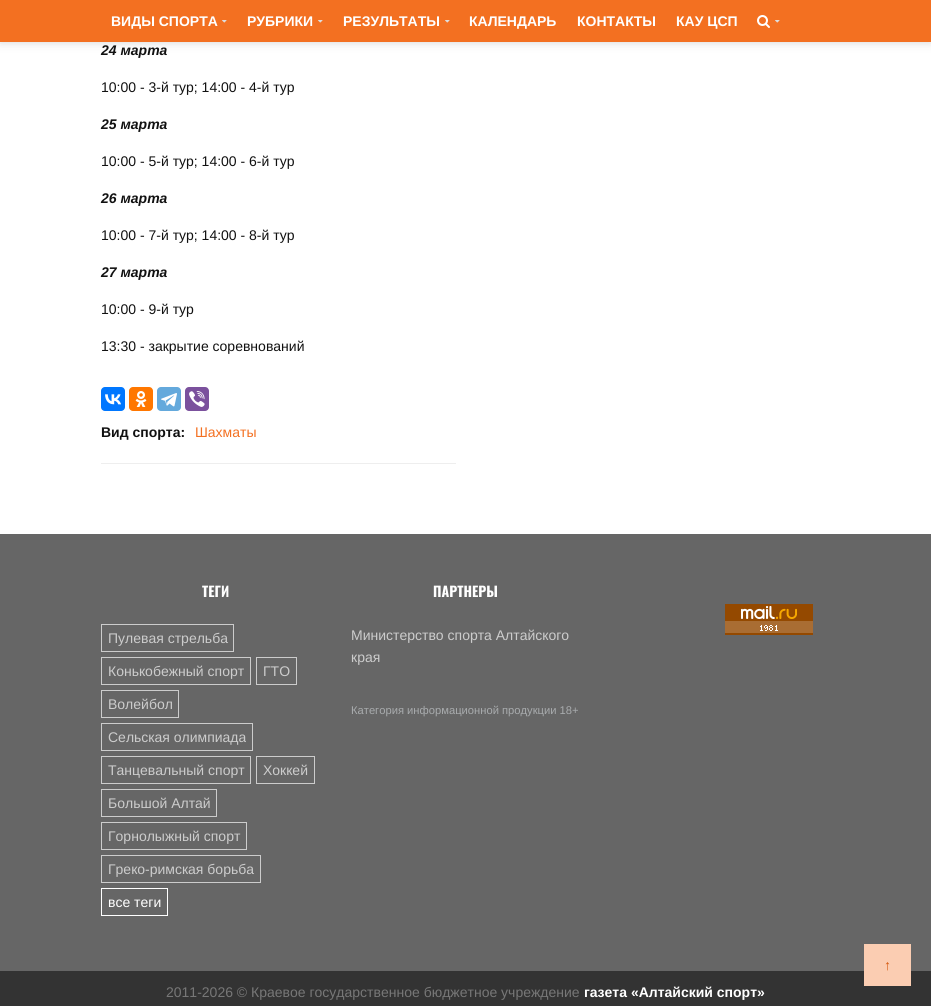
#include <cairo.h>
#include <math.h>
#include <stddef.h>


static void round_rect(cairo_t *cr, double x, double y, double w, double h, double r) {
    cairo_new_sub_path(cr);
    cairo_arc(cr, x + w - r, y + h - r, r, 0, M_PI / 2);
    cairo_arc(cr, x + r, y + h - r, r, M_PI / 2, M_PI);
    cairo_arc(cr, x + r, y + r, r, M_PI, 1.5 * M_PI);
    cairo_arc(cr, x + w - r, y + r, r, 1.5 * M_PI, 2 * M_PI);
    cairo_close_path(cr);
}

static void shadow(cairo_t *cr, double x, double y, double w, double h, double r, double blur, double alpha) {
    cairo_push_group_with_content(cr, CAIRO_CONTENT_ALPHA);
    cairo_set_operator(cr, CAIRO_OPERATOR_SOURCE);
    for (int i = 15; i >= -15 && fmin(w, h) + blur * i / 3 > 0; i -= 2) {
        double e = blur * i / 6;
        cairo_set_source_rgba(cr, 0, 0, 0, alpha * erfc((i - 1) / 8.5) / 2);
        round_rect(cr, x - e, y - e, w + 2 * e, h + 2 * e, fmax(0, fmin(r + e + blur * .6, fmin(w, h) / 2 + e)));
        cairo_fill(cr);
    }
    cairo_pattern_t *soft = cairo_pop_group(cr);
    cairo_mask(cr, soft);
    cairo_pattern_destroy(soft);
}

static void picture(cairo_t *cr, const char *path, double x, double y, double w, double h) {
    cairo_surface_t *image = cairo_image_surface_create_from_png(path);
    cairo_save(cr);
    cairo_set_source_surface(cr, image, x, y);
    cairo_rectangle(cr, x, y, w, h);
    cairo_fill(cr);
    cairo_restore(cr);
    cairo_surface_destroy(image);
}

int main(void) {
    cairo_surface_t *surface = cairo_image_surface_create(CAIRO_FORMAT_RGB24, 931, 1006);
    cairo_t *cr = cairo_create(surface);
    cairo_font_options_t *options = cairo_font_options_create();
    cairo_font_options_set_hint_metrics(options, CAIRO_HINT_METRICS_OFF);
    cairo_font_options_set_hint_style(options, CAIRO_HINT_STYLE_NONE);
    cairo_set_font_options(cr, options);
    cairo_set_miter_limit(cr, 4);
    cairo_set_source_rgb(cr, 1, 1, 1);
    cairo_paint(cr);
    cairo_set_source_rgb(cr, 0.133, 0.133, 0.133);
    shadow(cr, 0, 0, 931, 42, 0, 5, 0.2);
    cairo_set_source_rgb(cr, 0.953, 0.439, 0.129);
    cairo_rectangle(cr, 0, 0, 931, 42);
    cairo_fill(cr);
    cairo_select_font_face(cr, "Liberation Sans", CAIRO_FONT_SLANT_NORMAL, CAIRO_FONT_WEIGHT_BOLD);
    cairo_set_font_size(cr, 14);
    cairo_set_source_rgb(cr, 1, 1, 1);
    cairo_move_to(cr, 111, 26);
    cairo_show_text(cr, "ВИДЫ СПОРТА");
    picture(cr, "img1.png", 222, 20, 5, 3);
    cairo_move_to(cr, 247, 26);
    cairo_show_text(cr, "РУБРИКИ");
    picture(cr, "img1.png", 318, 20, 5, 3);
    cairo_move_to(cr, 343, 26);
    cairo_show_text(cr, "РЕЗУЛЬТАТЫ");
    picture(cr, "img1.png", 445, 20, 5, 3);
    cairo_move_to(cr, 469, 26);
    cairo_show_text(cr, "КАЛЕНДАРЬ");
    cairo_move_to(cr, 577, 26);
    cairo_show_text(cr, "КОНТАКТЫ");
    cairo_move_to(cr, 676, 26);
    cairo_show_text(cr, "КАУ ЦСП");
    picture(cr, "img2.png", 757, 15, 13, 13);
    picture(cr, "img1.png", 775, 20, 5, 3);
    cairo_select_font_face(cr, "Liberation Sans", CAIRO_FONT_SLANT_ITALIC, CAIRO_FONT_WEIGHT_BOLD);
    cairo_set_source_rgb(cr, 0.067, 0.067, 0.067);
    cairo_move_to(cr, 101, 55);
    cairo_show_text(cr, "24 марта");
    cairo_select_font_face(cr, "Liberation Sans", CAIRO_FONT_SLANT_NORMAL, CAIRO_FONT_WEIGHT_NORMAL);
    cairo_move_to(cr, 101, 92);
    cairo_show_text(cr, "10:00 - 3-й тур; 14:00 - 4-й тур");
    cairo_select_font_face(cr, "Liberation Sans", CAIRO_FONT_SLANT_ITALIC, CAIRO_FONT_WEIGHT_BOLD);
    cairo_move_to(cr, 101, 129);
    cairo_show_text(cr, "25 марта");
    cairo_select_font_face(cr, "Liberation Sans", CAIRO_FONT_SLANT_NORMAL, CAIRO_FONT_WEIGHT_NORMAL);
    cairo_move_to(cr, 101, 166);
    cairo_show_text(cr, "10:00 - 5-й тур; 14:00 - 6-й тур");
    cairo_select_font_face(cr, "Liberation Sans", CAIRO_FONT_SLANT_ITALIC, CAIRO_FONT_WEIGHT_BOLD);
    cairo_move_to(cr, 101, 203);
    cairo_show_text(cr, "26 марта");
    cairo_select_font_face(cr, "Liberation Sans", CAIRO_FONT_SLANT_NORMAL, CAIRO_FONT_WEIGHT_NORMAL);
    cairo_move_to(cr, 101, 240);
    cairo_show_text(cr, "10:00 - 7-й тур; 14:00 - 8-й тур");
    cairo_select_font_face(cr, "Liberation Sans", CAIRO_FONT_SLANT_ITALIC, CAIRO_FONT_WEIGHT_BOLD);
    cairo_move_to(cr, 101, 277);
    cairo_show_text(cr, "27 марта");
    cairo_select_font_face(cr, "Liberation Sans", CAIRO_FONT_SLANT_NORMAL, CAIRO_FONT_WEIGHT_NORMAL);
    cairo_move_to(cr, 101, 314);
    cairo_show_text(cr, "10:00 - 9-й тур");
    cairo_move_to(cr, 101, 351);
    cairo_show_text(cr, "13:30 - закрытие соревнований");
    cairo_set_source_rgb(cr, 0, 0.467, 1);
    round_rect(cr, 101, 387, 24, 24, 4);
    cairo_fill(cr);
    picture(cr, "img3.png", 105, 394, 16, 11);
    cairo_set_source_rgb(cr, 1, 0.467, 0);
    round_rect(cr, 129, 387, 24, 24, 4);
    cairo_fill(cr);
    picture(cr, "img4.png", 135, 391, 12, 16);
    cairo_set_source_rgb(cr, 0.392, 0.663, 0.863);
    round_rect(cr, 157, 387, 24, 24, 4);
    cairo_fill(cr);
    picture(cr, "img5.png", 161, 393, 16, 14);
    cairo_set_source_rgb(cr, 0.482, 0.318, 0.616);
    round_rect(cr, 185, 387, 24, 24, 4);
    cairo_fill(cr);
    picture(cr, "img6.png", 189, 391, 16, 16);
    cairo_select_font_face(cr, "Liberation Sans", CAIRO_FONT_SLANT_NORMAL, CAIRO_FONT_WEIGHT_BOLD);
    cairo_set_source_rgb(cr, 0.067, 0.067, 0.067);
    cairo_move_to(cr, 101, 437);
    cairo_show_text(cr, "Вид спорта:");
    cairo_select_font_face(cr, "Liberation Sans", CAIRO_FONT_SLANT_NORMAL, CAIRO_FONT_WEIGHT_NORMAL);
    cairo_set_source_rgb(cr, 0.953, 0.439, 0.129);
    cairo_move_to(cr, 195, 437);
    cairo_show_text(cr, "Шахматы");
    cairo_set_source_rgb(cr, 0.933, 0.933, 0.933);
    cairo_rectangle(cr, 101, 463, 355, 1);
    cairo_fill(cr);
    cairo_set_source_rgb(cr, 0.4, 0.4, 0.4);
    cairo_rectangle(cr, 0, 534, 931, 437);
    cairo_fill(cr);
    cairo_select_font_face(cr, "Oswald", CAIRO_FONT_SLANT_NORMAL, CAIRO_FONT_WEIGHT_BOLD);
    cairo_set_source_rgb(cr, 1, 1, 1);
    cairo_move_to(cr, 202, 597);
    cairo_show_text(cr, "ТЕГИ");
    cairo_rectangle(cr, 101.5, 624.5, 132, 27);
    cairo_set_source_rgb(cr, 0.8, 0.8, 0.8);
    cairo_set_line_width(cr, 1);
    cairo_stroke(cr);
    cairo_select_font_face(cr, "Liberation Sans", CAIRO_FONT_SLANT_NORMAL, CAIRO_FONT_WEIGHT_NORMAL);
    cairo_move_to(cr, 108, 643);
    cairo_show_text(cr, "Пулевая стрельба");
    cairo_rectangle(cr, 101.5, 657.5, 149, 27);
    cairo_stroke(cr);
    cairo_move_to(cr, 108, 676);
    cairo_show_text(cr, "Конькобежный спорт");
    cairo_rectangle(cr, 256.5, 657.5, 40, 27);
    cairo_stroke(cr);
    cairo_move_to(cr, 263, 676);
    cairo_show_text(cr, "ГТО");
    cairo_rectangle(cr, 101.5, 690.5, 77, 27);
    cairo_stroke(cr);
    cairo_move_to(cr, 108, 709);
    cairo_show_text(cr, "Волейбол");
    cairo_rectangle(cr, 101.5, 723.5, 151, 27);
    cairo_stroke(cr);
    cairo_move_to(cr, 108, 742);
    cairo_show_text(cr, "Сельская олимпиада");
    cairo_rectangle(cr, 101.5, 756.5, 149, 27);
    cairo_stroke(cr);
    cairo_move_to(cr, 108, 775);
    cairo_show_text(cr, "Танцевальный спорт");
    cairo_rectangle(cr, 256.5, 756.5, 58, 27);
    cairo_stroke(cr);
    cairo_move_to(cr, 263, 775);
    cairo_show_text(cr, "Хоккей");
    cairo_rectangle(cr, 101.5, 789.5, 115, 27);
    cairo_stroke(cr);
    cairo_move_to(cr, 108, 808);
    cairo_show_text(cr, "Большой Алтай");
    cairo_rectangle(cr, 101.5, 822.5, 145, 27);
    cairo_stroke(cr);
    cairo_move_to(cr, 108, 841);
    cairo_show_text(cr, "Горнолыжный спорт");
    cairo_rectangle(cr, 101.5, 855.5, 159, 27);
    cairo_stroke(cr);
    cairo_move_to(cr, 108, 874);
    cairo_show_text(cr, "Греко-римская борьба");
    cairo_rectangle(cr, 101.5, 888.5, 66, 27);
    cairo_set_source_rgb(cr, 1, 1, 1);
    cairo_stroke(cr);
    cairo_move_to(cr, 108, 907);
    cairo_show_text(cr, "все теги");
    cairo_select_font_face(cr, "Oswald", CAIRO_FONT_SLANT_NORMAL, CAIRO_FONT_WEIGHT_BOLD);
    cairo_move_to(cr, 433, 597);
    cairo_show_text(cr, "ПАРТНЕРЫ");
    cairo_select_font_face(cr, "Liberation Sans", CAIRO_FONT_SLANT_NORMAL, CAIRO_FONT_WEIGHT_NORMAL);
    cairo_set_source_rgb(cr, 0.8, 0.8, 0.8);
    cairo_move_to(cr, 351, 640);
    cairo_show_text(cr, "Министерство спорта Алтайского");
    cairo_move_to(cr, 351, 662);
    cairo_show_text(cr, "края");
    cairo_set_font_size(cr, 11.2);
    cairo_set_source_rgb(cr, 0.659, 0.671, 0.678);
    cairo_move_to(cr, 351, 714);
    cairo_show_text(cr, "Категория информационной продукции 18+");
    picture(cr, "img7.png", 725, 604, 88, 31);
    cairo_set_source_rgb(cr, 0.2, 0.2, 0.2);
    cairo_rectangle(cr, 0, 971, 931, 35);
    cairo_fill(cr);
    cairo_set_font_size(cr, 14);
    cairo_set_source_rgb(cr, 0.467, 0.467, 0.467);
    cairo_move_to(cr, 166, 997);
    cairo_show_text(cr, "2011-2026 © Краевое государственное бюджетное учреждение");
    cairo_select_font_face(cr, "Liberation Sans", CAIRO_FONT_SLANT_NORMAL, CAIRO_FONT_WEIGHT_BOLD);
    cairo_set_source_rgb(cr, 1, 1, 1);
    cairo_move_to(cr, 584, 997);
    cairo_show_text(cr, "газета «Алтайский спорт»");
    cairo_set_source_rgb(cr, 0.984, 0.804, 0.698);
    cairo_rectangle(cr, 864, 944, 47, 42);
    cairo_fill(cr);
    cairo_select_font_face(cr, "Liberation Sans", CAIRO_FONT_SLANT_NORMAL, CAIRO_FONT_WEIGHT_NORMAL);
    cairo_set_source_rgb(cr, 0.835, 0.345, 0.047);
    cairo_move_to(cr, 884, 970);
    cairo_show_text(cr, "↑");
    cairo_surface_write_to_png(surface, "page.png");
    cairo_font_options_destroy(options);
    cairo_destroy(cr);
    cairo_surface_destroy(surface);
    return 0;
}
